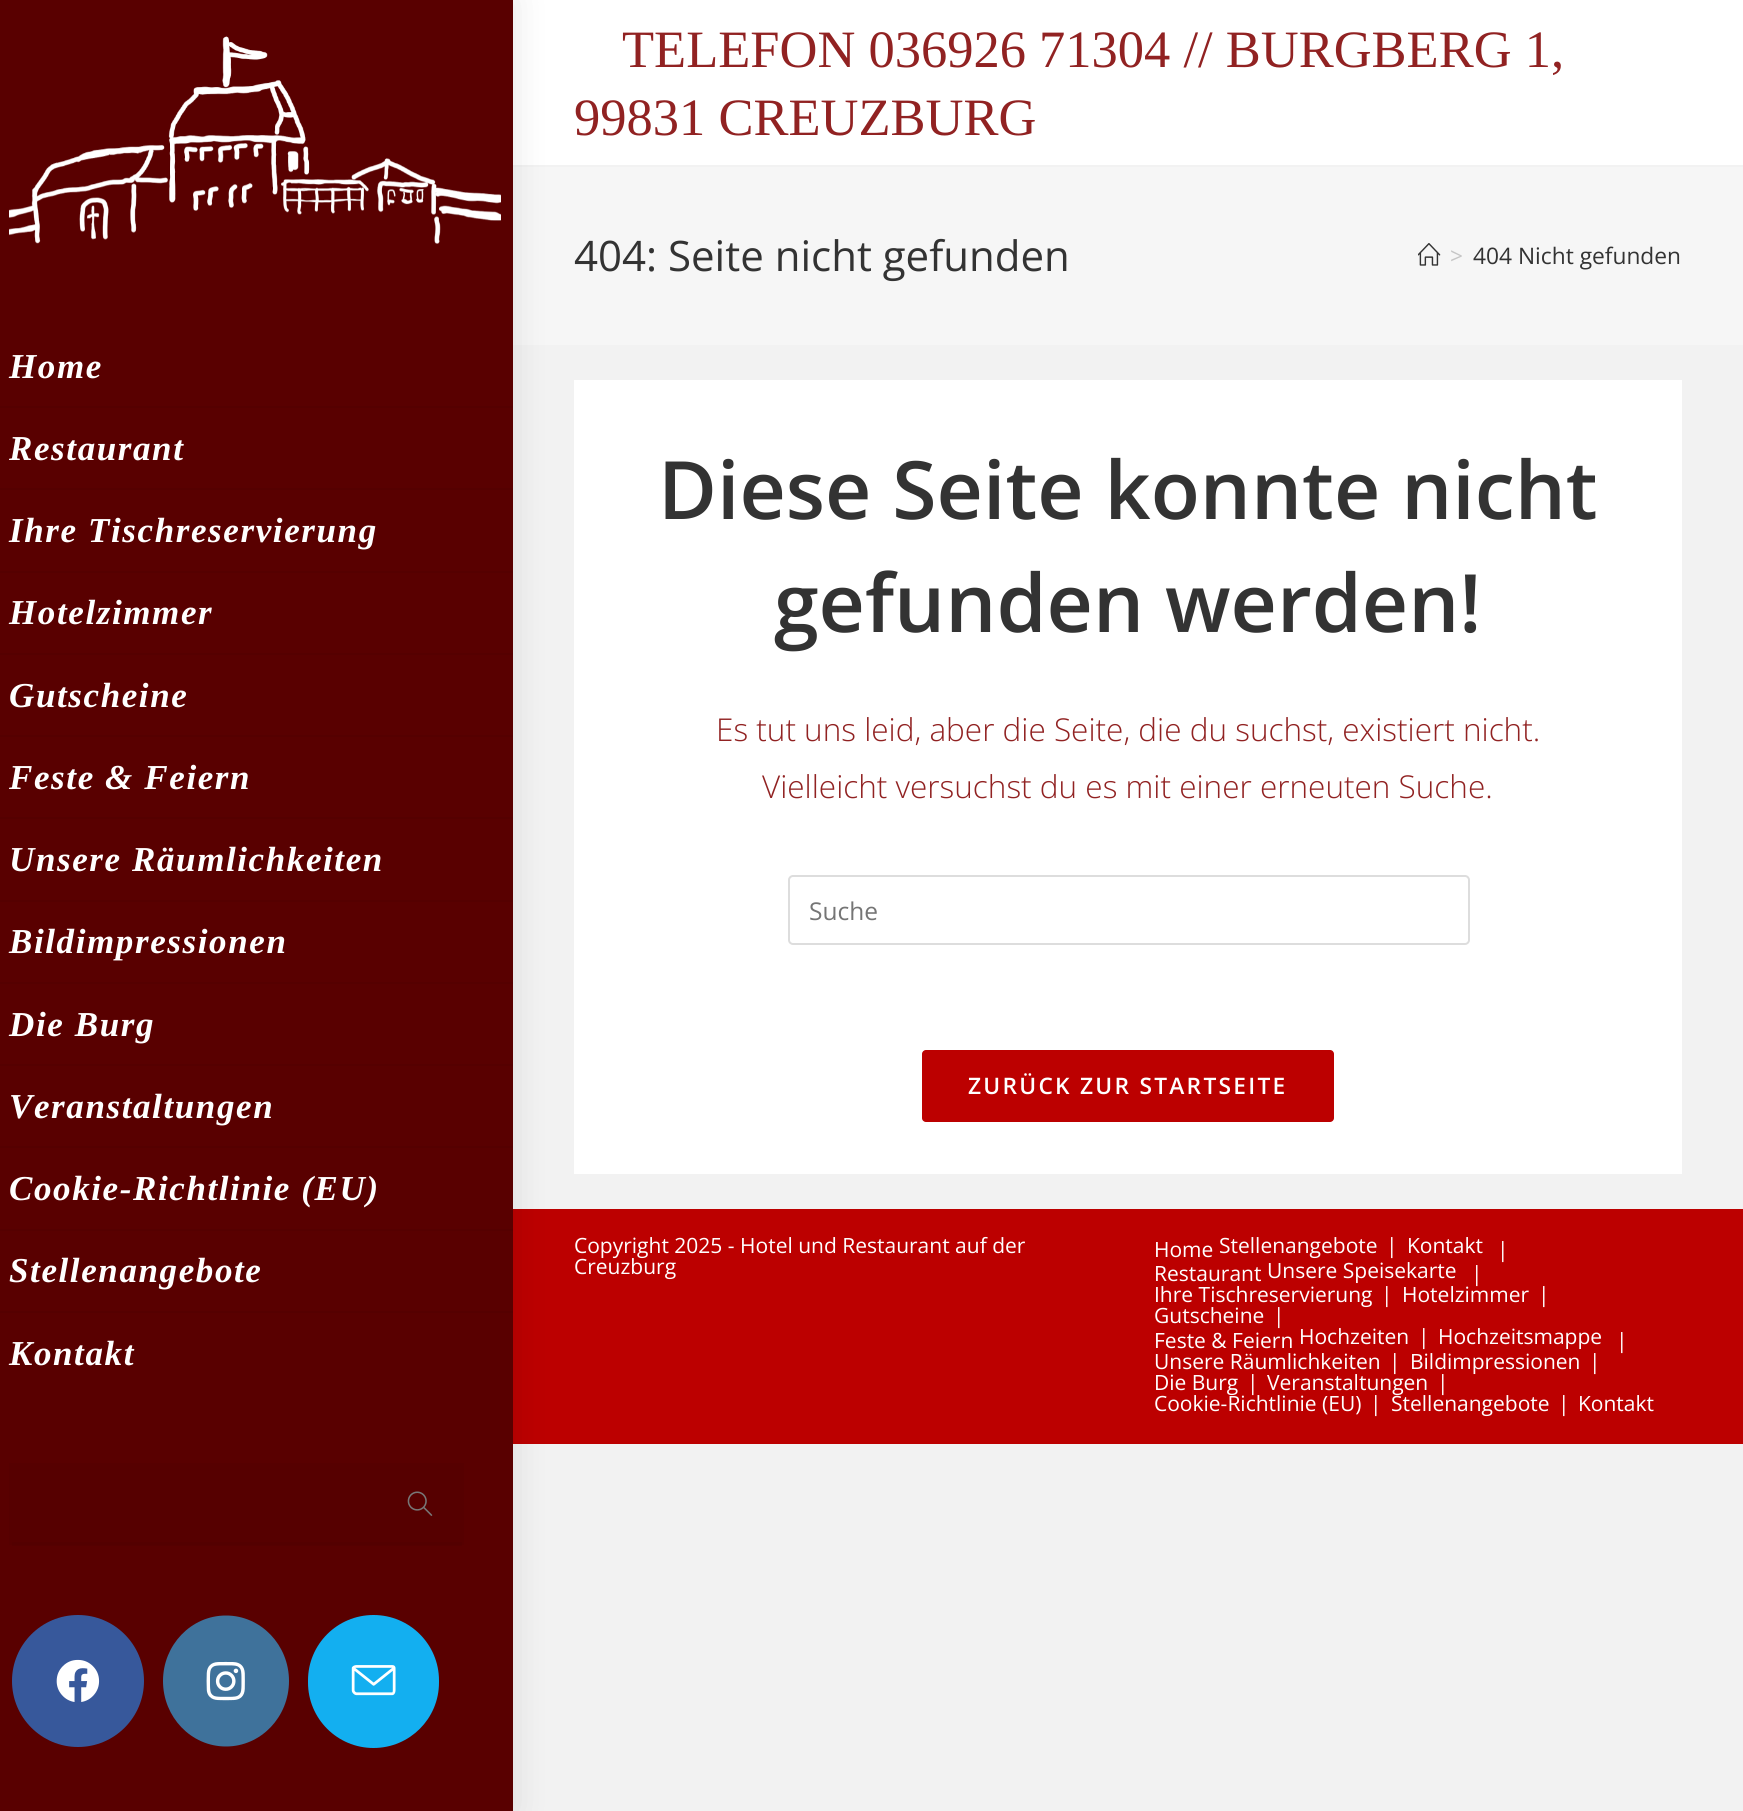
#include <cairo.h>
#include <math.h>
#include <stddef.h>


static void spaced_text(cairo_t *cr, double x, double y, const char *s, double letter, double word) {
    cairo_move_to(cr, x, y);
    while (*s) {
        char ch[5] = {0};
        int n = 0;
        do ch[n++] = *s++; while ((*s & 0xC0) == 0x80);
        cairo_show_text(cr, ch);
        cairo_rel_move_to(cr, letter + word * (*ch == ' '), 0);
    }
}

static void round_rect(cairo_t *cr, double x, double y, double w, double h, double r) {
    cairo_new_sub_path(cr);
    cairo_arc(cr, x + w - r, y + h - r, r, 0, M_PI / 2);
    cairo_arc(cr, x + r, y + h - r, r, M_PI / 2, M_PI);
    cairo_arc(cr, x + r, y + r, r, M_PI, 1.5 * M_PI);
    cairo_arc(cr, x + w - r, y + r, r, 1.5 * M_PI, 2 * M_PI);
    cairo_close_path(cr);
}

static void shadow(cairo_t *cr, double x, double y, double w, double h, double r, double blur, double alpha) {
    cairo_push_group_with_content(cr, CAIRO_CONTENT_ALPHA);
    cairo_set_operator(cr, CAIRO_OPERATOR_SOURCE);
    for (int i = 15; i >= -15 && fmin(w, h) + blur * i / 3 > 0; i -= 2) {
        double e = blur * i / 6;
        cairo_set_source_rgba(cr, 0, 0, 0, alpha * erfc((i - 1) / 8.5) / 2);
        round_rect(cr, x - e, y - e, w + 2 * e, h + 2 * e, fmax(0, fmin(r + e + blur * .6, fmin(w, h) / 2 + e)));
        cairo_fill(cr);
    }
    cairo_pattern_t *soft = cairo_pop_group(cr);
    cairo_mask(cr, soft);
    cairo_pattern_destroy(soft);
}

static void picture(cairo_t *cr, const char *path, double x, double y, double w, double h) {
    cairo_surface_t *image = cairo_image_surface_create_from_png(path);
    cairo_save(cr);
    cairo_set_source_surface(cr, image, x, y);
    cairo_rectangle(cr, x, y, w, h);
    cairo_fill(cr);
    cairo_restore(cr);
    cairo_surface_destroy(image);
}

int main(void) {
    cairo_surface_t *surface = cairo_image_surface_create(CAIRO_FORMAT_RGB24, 1743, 1811);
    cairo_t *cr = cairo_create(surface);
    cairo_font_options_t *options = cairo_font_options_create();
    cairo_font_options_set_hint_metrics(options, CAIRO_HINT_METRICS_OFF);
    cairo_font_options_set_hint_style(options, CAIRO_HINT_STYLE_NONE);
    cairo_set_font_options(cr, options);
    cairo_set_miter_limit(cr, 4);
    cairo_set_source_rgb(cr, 0.949, 0.949, 0.949);
    cairo_paint(cr);
    cairo_set_source_rgb(cr, 1, 1, 1);
    cairo_rectangle(cr, 513, 0, 1230, 165);
    cairo_fill(cr);
    cairo_select_font_face(cr, "Liberation Serif", CAIRO_FONT_SLANT_NORMAL, CAIRO_FONT_WEIGHT_NORMAL);
    cairo_set_font_size(cr, 52.5);
    cairo_set_source_rgb(cr, 0.569, 0.133, 0.133);
    cairo_move_to(cr, 622, 67);
    cairo_show_text(cr, "TELEFON 036926 71304 // BURGBERG 1,");
    cairo_move_to(cr, 574, 135);
    cairo_show_text(cr, "99831 CREUZBURG");
    cairo_set_source_rgb(cr, 0.961, 0.961, 0.961);
    cairo_rectangle(cr, 513, 167, 1230, 178);
    cairo_fill(cr);
    cairo_set_source_rgb(cr, 0.737, 0, 0);
    cairo_rectangle(cr, 513, 1209, 1230, 235);
    cairo_fill(cr);
    cairo_set_source_rgb(cr, 0, 0, 0);
    shadow(cr, 0, 0, 513, 1811, 0, 17.5, 0.1);
    cairo_set_source_rgb(cr, 0.349, 0, 0);
    cairo_rectangle(cr, 0, 0, 513, 1811);
    cairo_fill(cr);
    cairo_set_source_rgb(cr, 0.333, 0, 0);
    cairo_rectangle(cr, 12, 1545, 450, 1);
    cairo_fill(cr);
    picture(cr, "img1.png", 9, 36, 492, 208);
    cairo_rectangle(cr, 0, 406, 513, 2);
    cairo_fill(cr);
    cairo_select_font_face(cr, "Liberation Serif", CAIRO_FONT_SLANT_ITALIC, CAIRO_FONT_WEIGHT_BOLD);
    cairo_set_font_size(cr, 35);
    cairo_set_source_rgb(cr, 1, 1, 1);
    spaced_text(cr, 9, 378, "Home", 1.6, 0);
    cairo_set_source_rgb(cr, 0.333, 0, 0);
    cairo_rectangle(cr, 0, 488, 513, 2);
    cairo_fill(cr);
    cairo_set_source_rgb(cr, 1, 1, 1);
    spaced_text(cr, 9, 460, "Restaurant", 1.6, 0);
    cairo_set_source_rgb(cr, 0.333, 0, 0);
    cairo_rectangle(cr, 0, 571, 513, 2);
    cairo_fill(cr);
    cairo_set_source_rgb(cr, 1, 1, 1);
    spaced_text(cr, 9, 542, "Ihre Tischreservierung", 1.6, 0);
    cairo_set_source_rgb(cr, 0.333, 0, 0);
    cairo_rectangle(cr, 0, 653, 513, 2);
    cairo_fill(cr);
    cairo_set_source_rgb(cr, 1, 1, 1);
    spaced_text(cr, 9, 624, "Hotelzimmer", 1.6, 0);
    cairo_set_source_rgb(cr, 0.333, 0, 0);
    cairo_rectangle(cr, 0, 735, 513, 2);
    cairo_fill(cr);
    cairo_set_source_rgb(cr, 1, 1, 1);
    spaced_text(cr, 9, 707, "Gutscheine", 1.6, 0);
    cairo_set_source_rgb(cr, 0.333, 0, 0);
    cairo_rectangle(cr, 0, 817, 513, 2);
    cairo_fill(cr);
    cairo_set_source_rgb(cr, 1, 1, 1);
    spaced_text(cr, 9, 789, "Feste & Feiern", 1.6, 0);
    cairo_set_source_rgb(cr, 0.333, 0, 0);
    cairo_rectangle(cr, 0, 900, 513, 2);
    cairo_fill(cr);
    cairo_set_source_rgb(cr, 1, 1, 1);
    spaced_text(cr, 9, 871, "Unsere Räumlichkeiten", 1.6, 0);
    cairo_set_source_rgb(cr, 0.333, 0, 0);
    cairo_rectangle(cr, 0, 982, 513, 2);
    cairo_fill(cr);
    cairo_set_source_rgb(cr, 1, 1, 1);
    spaced_text(cr, 9, 953, "Bildimpressionen", 1.6, 0);
    cairo_set_source_rgb(cr, 0.333, 0, 0);
    cairo_rectangle(cr, 0, 1064, 513, 2);
    cairo_fill(cr);
    cairo_set_source_rgb(cr, 1, 1, 1);
    spaced_text(cr, 9, 1036, "Die Burg", 1.6, 0);
    cairo_set_source_rgb(cr, 0.333, 0, 0);
    cairo_rectangle(cr, 0, 1146, 513, 2);
    cairo_fill(cr);
    cairo_set_source_rgb(cr, 1, 1, 1);
    spaced_text(cr, 9, 1118, "Veranstaltungen", 1.6, 0);
    cairo_set_source_rgb(cr, 0.333, 0, 0);
    cairo_rectangle(cr, 0, 1229, 513, 2);
    cairo_fill(cr);
    cairo_set_source_rgb(cr, 1, 1, 1);
    spaced_text(cr, 9, 1200, "Cookie-Richtlinie (EU)", 1.6, 0);
    cairo_set_source_rgb(cr, 0.333, 0, 0);
    cairo_rectangle(cr, 0, 1311, 513, 2);
    cairo_fill(cr);
    cairo_set_source_rgb(cr, 1, 1, 1);
    spaced_text(cr, 9, 1282, "Stellenangebote", 1.6, 0);
    spaced_text(cr, 9, 1365, "Kontakt", 1.6, 0);
    cairo_set_source_rgb(cr, 0.337, 0, 0);
    cairo_rectangle(cr, 9, 1463, 455, 82);
    cairo_fill(cr);
    cairo_set_source_rgb(cr, 0.325, 0, 0);
    cairo_rectangle(cr, 12, 1542, 450, 3);
    cairo_fill(cr);
    picture(cr, "img2.png", 407, 1491, 26, 25);
    cairo_set_source_rgb(cr, 0.216, 0.345, 0.608);
    cairo_arc(cr, 78, 1681, 66, 0, 2 * M_PI);
    cairo_fill(cr);
    picture(cr, "img3.png", 56, 1659, 44, 43);
    cairo_set_source_rgb(cr, 0.247, 0.447, 0.608);
    cairo_new_path(cr);
    cairo_move_to(cr, 226, 1615.5);
    cairo_curve_to(cr, 261, 1615.5, 289, 1645, 289, 1681);
    cairo_curve_to(cr, 289, 1717, 261, 1746.5, 226, 1746.5);
    cairo_curve_to(cr, 191, 1746.5, 163, 1717, 163, 1681);
    cairo_curve_to(cr, 163, 1645, 191, 1615.5, 226, 1615.5);
    cairo_close_path(cr);
    cairo_fill(cr);
    picture(cr, "img4.png", 206, 1661, 39, 40);
    cairo_set_source_rgb(cr, 0.075, 0.686, 0.941);
    round_rect(cr, 308, 1615, 131, 133, 65.5);
    cairo_fill(cr);
    picture(cr, "img5.png", 351, 1665, 45, 31);
    cairo_select_font_face(cr, "Open Sans", CAIRO_FONT_SLANT_NORMAL, CAIRO_FONT_WEIGHT_NORMAL);
    cairo_set_font_size(cr, 42);
    cairo_set_source_rgb(cr, 0.2, 0.2, 0.2);
    cairo_move_to(cr, 574, 271);
    cairo_show_text(cr, "404: Seite nicht gefunden");
    picture(cr, "img6.png", 1418, 243, 23, 23);
    cairo_set_font_size(cr, 22.75);
    cairo_set_source_rgb(cr, 0.776, 0.776, 0.776);
    cairo_move_to(cr, 1450, 264);
    cairo_show_text(cr, ">");
    cairo_set_source_rgb(cr, 0.2, 0.2, 0.2);
    cairo_move_to(cr, 1473, 264);
    cairo_show_text(cr, "404 Nicht gefunden");
    cairo_set_source_rgb(cr, 1, 1, 1);
    cairo_rectangle(cr, 574, 380, 1108, 794);
    cairo_fill(cr);
    cairo_select_font_face(cr, "Open Sans SemiBold", CAIRO_FONT_SLANT_NORMAL, CAIRO_FONT_WEIGHT_NORMAL);
    cairo_set_font_size(cr, 80.5);
    cairo_set_source_rgb(cr, 0.2, 0.2, 0.2);
    cairo_move_to(cr, 658, 519);
    cairo_show_text(cr, "Diese Seite konnte nicht");
    cairo_move_to(cr, 774, 632);
    cairo_show_text(cr, "gefunden werden!");
    cairo_select_font_face(cr, "Open Sans Light", CAIRO_FONT_SLANT_NORMAL, CAIRO_FONT_WEIGHT_NORMAL);
    cairo_set_font_size(cr, 31.5);
    cairo_set_source_rgb(cr, 0.569, 0.133, 0.133);
    cairo_move_to(cr, 716, 741);
    cairo_show_text(cr, "Es tut uns leid, aber die Seite, die du suchst, existiert nicht.");
    cairo_move_to(cr, 762, 798);
    cairo_show_text(cr, "Vielleicht versuchst du es mit einer erneuten Suche.");
    round_rect(cr, 789, 876, 680, 68, 4);
    cairo_set_source_rgb(cr, 0.867, 0.867, 0.867);
    cairo_stroke(cr);
    cairo_select_font_face(cr, "Open Sans", CAIRO_FONT_SLANT_NORMAL, CAIRO_FONT_WEIGHT_NORMAL);
    cairo_set_font_size(cr, 24.5);
    cairo_set_source_rgb(cr, 0.459, 0.459, 0.459);
    cairo_move_to(cr, 809, 920);
    cairo_show_text(cr, "Suche");
    cairo_set_source_rgb(cr, 0.737, 0, 0);
    round_rect(cr, 922, 1050, 412, 72, 4);
    cairo_fill(cr);
    cairo_select_font_face(cr, "Open Sans SemiBold", CAIRO_FONT_SLANT_NORMAL, CAIRO_FONT_WEIGHT_NORMAL);
    cairo_set_font_size(cr, 22.75);
    cairo_set_source_rgb(cr, 1, 1, 1);
    spaced_text(cr, 968, 1094, "ZURÜCK ZUR STARTSEITE", 2.25, 0);
    cairo_select_font_face(cr, "Open Sans", CAIRO_FONT_SLANT_NORMAL, CAIRO_FONT_WEIGHT_NORMAL);
    cairo_set_font_size(cr, 21);
    cairo_move_to(cr, 574, 1253);
    cairo_show_text(cr, "Copyright 2025 - Hotel und Restaurant auf der");
    cairo_move_to(cr, 574, 1274);
    cairo_show_text(cr, "Creuzburg");
    cairo_move_to(cr, 1154, 1257);
    cairo_show_text(cr, "Home");
    cairo_move_to(cr, 1219, 1253);
    cairo_show_text(cr, "Stellenangebote");
    cairo_move_to(cr, 1386, 1253);
    cairo_show_text(cr, "|");
    cairo_move_to(cr, 1407, 1253);
    cairo_show_text(cr, "Kontakt");
    cairo_move_to(cr, 1497, 1257);
    cairo_show_text(cr, "|");
    cairo_move_to(cr, 1154, 1281);
    cairo_show_text(cr, "Restaurant");
    cairo_move_to(cr, 1267, 1278);
    cairo_show_text(cr, "Unsere Speisekarte");
    cairo_move_to(cr, 1471, 1281);
    cairo_show_text(cr, "|");
    cairo_move_to(cr, 1154, 1302);
    cairo_show_text(cr, "Ihre Tischreservierung");
    cairo_move_to(cr, 1381, 1302);
    cairo_show_text(cr, "|");
    cairo_move_to(cr, 1402, 1302);
    cairo_show_text(cr, "Hotelzimmer");
    cairo_move_to(cr, 1538, 1302);
    cairo_show_text(cr, "|");
    cairo_move_to(cr, 1154, 1323);
    cairo_show_text(cr, "Gutscheine");
    cairo_move_to(cr, 1273, 1323);
    cairo_show_text(cr, "|");
    cairo_move_to(cr, 1154, 1348);
    cairo_show_text(cr, "Feste & Feiern");
    cairo_move_to(cr, 1299, 1344);
    cairo_show_text(cr, "Hochzeiten");
    cairo_move_to(cr, 1418, 1344);
    cairo_show_text(cr, "|");
    cairo_move_to(cr, 1438, 1344);
    cairo_show_text(cr, "Hochzeitsmappe");
    cairo_move_to(cr, 1616, 1348);
    cairo_show_text(cr, "|");
    cairo_move_to(cr, 1154, 1369);
    cairo_show_text(cr, "Unsere Räumlichkeiten");
    cairo_move_to(cr, 1389, 1369);
    cairo_show_text(cr, "|");
    cairo_move_to(cr, 1410, 1369);
    cairo_show_text(cr, "Bildimpressionen");
    cairo_move_to(cr, 1589, 1369);
    cairo_show_text(cr, "|");
    cairo_move_to(cr, 1154, 1390);
    cairo_show_text(cr, "Die Burg");
    cairo_move_to(cr, 1247, 1390);
    cairo_show_text(cr, "|");
    cairo_move_to(cr, 1267, 1390);
    cairo_show_text(cr, "Veranstaltungen");
    cairo_move_to(cr, 1437, 1390);
    cairo_show_text(cr, "|");
    cairo_move_to(cr, 1154, 1411);
    cairo_show_text(cr, "Cookie-Richtlinie (EU)");
    cairo_move_to(cr, 1370, 1411);
    cairo_show_text(cr, "|");
    cairo_move_to(cr, 1391, 1411);
    cairo_show_text(cr, "Stellenangebote");
    cairo_move_to(cr, 1558, 1411);
    cairo_show_text(cr, "|");
    cairo_move_to(cr, 1578, 1411);
    cairo_show_text(cr, "Kontakt");
    cairo_surface_write_to_png(surface, "page.png");
    cairo_font_options_destroy(options);
    cairo_destroy(cr);
    cairo_surface_destroy(surface);
    return 0;
}
